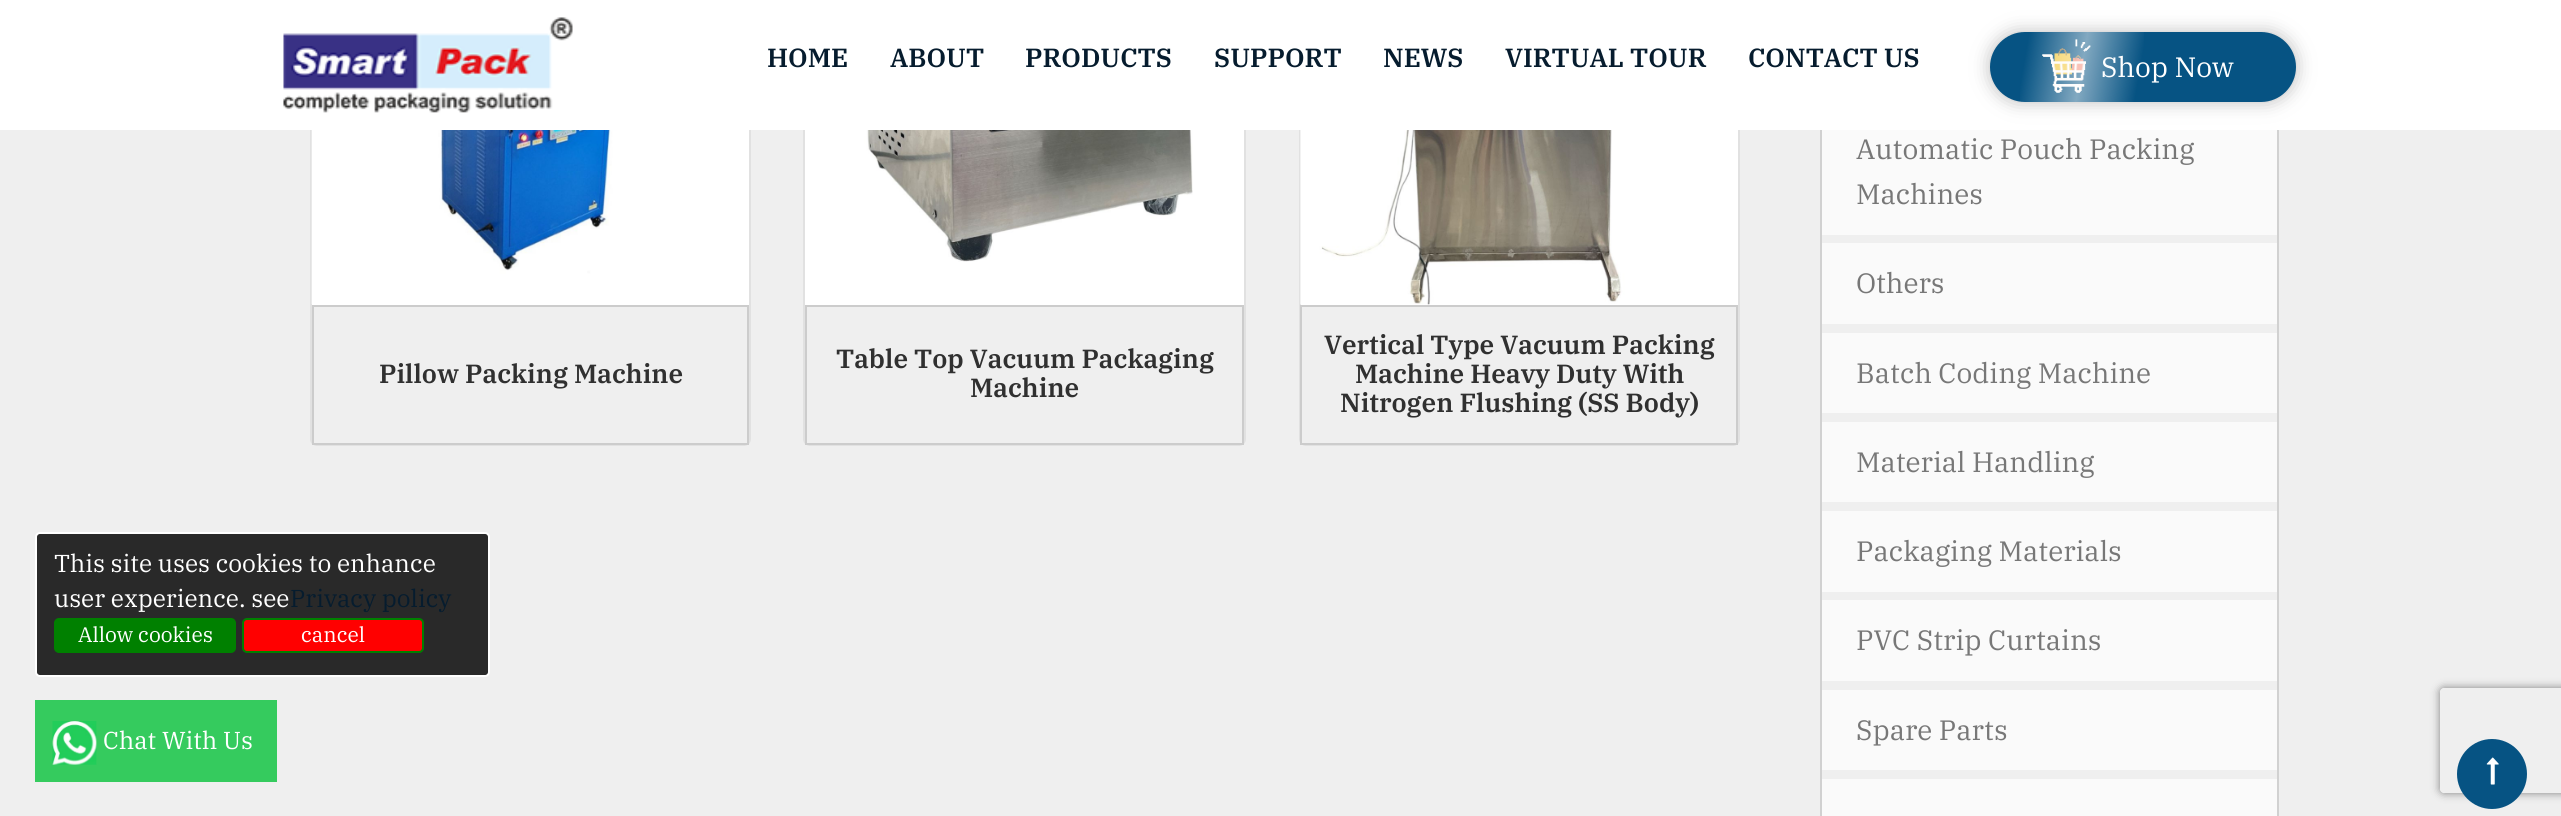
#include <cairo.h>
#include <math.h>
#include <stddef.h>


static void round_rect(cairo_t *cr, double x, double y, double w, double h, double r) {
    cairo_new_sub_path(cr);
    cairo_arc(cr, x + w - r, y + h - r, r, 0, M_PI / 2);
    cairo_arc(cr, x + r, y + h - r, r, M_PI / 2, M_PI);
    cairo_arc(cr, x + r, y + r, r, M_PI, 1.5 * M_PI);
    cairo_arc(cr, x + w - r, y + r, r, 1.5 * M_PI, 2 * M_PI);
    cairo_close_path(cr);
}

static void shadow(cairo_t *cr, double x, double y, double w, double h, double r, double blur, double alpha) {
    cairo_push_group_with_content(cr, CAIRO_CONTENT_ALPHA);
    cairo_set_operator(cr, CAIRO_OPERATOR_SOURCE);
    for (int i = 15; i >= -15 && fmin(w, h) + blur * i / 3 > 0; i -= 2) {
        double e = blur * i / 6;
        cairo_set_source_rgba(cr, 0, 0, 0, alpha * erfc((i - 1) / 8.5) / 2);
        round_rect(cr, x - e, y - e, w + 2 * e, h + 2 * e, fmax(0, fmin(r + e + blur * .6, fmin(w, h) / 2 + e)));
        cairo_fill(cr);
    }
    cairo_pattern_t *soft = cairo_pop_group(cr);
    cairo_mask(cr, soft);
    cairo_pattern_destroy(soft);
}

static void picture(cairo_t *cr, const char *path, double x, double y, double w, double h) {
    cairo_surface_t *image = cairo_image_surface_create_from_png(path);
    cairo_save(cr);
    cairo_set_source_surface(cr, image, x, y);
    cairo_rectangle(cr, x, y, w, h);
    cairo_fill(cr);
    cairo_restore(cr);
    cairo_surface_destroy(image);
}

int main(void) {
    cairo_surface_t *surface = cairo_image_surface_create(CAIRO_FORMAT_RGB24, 2561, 816);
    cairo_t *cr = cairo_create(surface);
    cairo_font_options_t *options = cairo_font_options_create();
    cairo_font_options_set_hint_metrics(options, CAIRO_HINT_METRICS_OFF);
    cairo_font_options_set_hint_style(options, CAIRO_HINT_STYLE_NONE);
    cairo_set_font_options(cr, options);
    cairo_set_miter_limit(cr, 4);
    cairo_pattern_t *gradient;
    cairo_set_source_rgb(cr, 0.937, 0.937, 0.937);
    cairo_paint(cr);
    cairo_set_source_rgb(cr, 1, 1, 1);
    round_rect(cr, 310, -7, 441, 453, 7);
    cairo_fill(cr);
    round_rect(cr, 311, -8, 439, 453, 6);
    cairo_set_source_rgba(cr, 0, 0, 0, 0.12);
    cairo_stroke(cr);
    cairo_set_source_rgb(cr, 1, 1, 1);
    round_rect(cr, 803, -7, 443, 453, 7);
    cairo_fill(cr);
    round_rect(cr, 804, -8, 441, 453, 6);
    cairo_set_source_rgba(cr, 0, 0, 0, 0.12);
    cairo_stroke(cr);
    cairo_set_source_rgb(cr, 1, 1, 1);
    round_rect(cr, 1299, -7, 441, 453, 7);
    cairo_fill(cr);
    round_rect(cr, 1300, -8, 439, 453, 6);
    cairo_set_source_rgba(cr, 0, 0, 0, 0.12);
    cairo_stroke(cr);
    cairo_rectangle(cr, 1821, -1, 457, 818);
    cairo_set_source_rgb(cr, 0.82, 0.82, 0.82);
    cairo_stroke(cr);
    cairo_set_source_rgb(cr, 1, 1, 1);
    cairo_rectangle(cr, 0, 0, 2561, 130);
    cairo_fill(cr);
    picture(cr, "img1.png", 283, 17, 290, 96);
    cairo_select_font_face(cr, "IBM Plex Serif SemiBold", CAIRO_FONT_SLANT_NORMAL, CAIRO_FONT_WEIGHT_NORMAL);
    cairo_set_font_size(cr, 26.25);
    cairo_set_source_rgb(cr, 0.027, 0.11, 0.18);
    cairo_move_to(cr, 767, 67);
    cairo_show_text(cr, "HOME");
    cairo_move_to(cr, 890, 67);
    cairo_show_text(cr, "ABOUT");
    cairo_move_to(cr, 1025, 67);
    cairo_show_text(cr, "PRODUCTS");
    cairo_move_to(cr, 1214, 67);
    cairo_show_text(cr, "SUPPORT");
    cairo_move_to(cr, 1383, 67);
    cairo_show_text(cr, "NEWS");
    cairo_move_to(cr, 1505, 67);
    cairo_show_text(cr, "VIRTUAL TOUR");
    cairo_move_to(cr, 1748, 67);
    cairo_show_text(cr, "CONTACT US");
    cairo_set_source_rgb(cr, 0.482, 0.482, 0.482);
    shadow(cr, 1990, 32, 306, 70, 35, 9, 0.5);
    cairo_set_source_rgb(cr, 0.027, 0.325, 0.514);
    round_rect(cr, 1990, 32, 306, 70, 35);
    cairo_fill(cr);
    picture(cr, "img2.png", 2042, 39, 49, 54);
    cairo_select_font_face(cr, "IBM Plex Serif", CAIRO_FONT_SLANT_NORMAL, CAIRO_FONT_WEIGHT_NORMAL);
    cairo_set_font_size(cr, 28);
    cairo_set_source_rgb(cr, 1, 1, 1);
    cairo_move_to(cr, 2101, 77);
    cairo_show_text(cr, "Shop Now");
    gradient = cairo_pattern_create_linear(1987, 50, 2177, 83);
    cairo_pattern_add_color_stop_rgba(gradient, 0.2, 1, 1, 1, 0);
    cairo_pattern_add_color_stop_rgba(gradient, 0.5, 1, 1, 1, 0.5);
    cairo_pattern_add_color_stop_rgba(gradient, 0.8, 1, 1, 1, 0);
    cairo_set_source(cr, gradient);
    cairo_pattern_destroy(gradient);
    cairo_rectangle(cr, 2020, 32, 124, 70);
    cairo_fill(cr);
    cairo_set_source_rgb(cr, 0.161, 0.161, 0.161);
    round_rect(cr, 36, 533, 453, 143, 4);
    cairo_fill_preserve(cr);
    cairo_set_source_rgb(cr, 1, 1, 1);
    cairo_stroke(cr);
    cairo_set_font_size(cr, 24.5);
    cairo_move_to(cr, 54, 572);
    cairo_show_text(cr, "This site uses cookies to enhance");
    cairo_move_to(cr, 54, 607);
    cairo_show_text(cr, "user experience. see");
    cairo_set_source_rgb(cr, 0.027, 0.11, 0.18);
    cairo_move_to(cr, 290, 607);
    cairo_show_text(cr, "Privacy policy");
    cairo_set_source_rgb(cr, 0, 0.502, 0);
    round_rect(cr, 55, 619, 180, 33, 4);
    cairo_fill_preserve(cr);
    cairo_stroke(cr);
    cairo_set_font_size(cr, 21);
    cairo_set_source_rgb(cr, 1, 1, 1);
    cairo_move_to(cr, 78, 642);
    cairo_show_text(cr, "Allow cookies");
    cairo_set_source_rgb(cr, 1, 0, 0);
    round_rect(cr, 243, 619, 180, 33, 4);
    cairo_fill_preserve(cr);
    cairo_set_source_rgb(cr, 0, 0.502, 0);
    cairo_stroke(cr);
    cairo_set_source_rgb(cr, 1, 1, 1);
    cairo_move_to(cr, 301, 642);
    cairo_show_text(cr, "cancel");
    picture(cr, "img3.png", 311, 130, 331, 174);
    cairo_set_source_rgb(cr, 0.937, 0.937, 0.937);
    cairo_rectangle(cr, 313, 306, 435, 138);
    cairo_fill_preserve(cr);
    cairo_set_source_rgb(cr, 0.8, 0.8, 0.8);
    cairo_stroke(cr);
    cairo_select_font_face(cr, "IBM Plex Serif SemiBold", CAIRO_FONT_SLANT_NORMAL, CAIRO_FONT_WEIGHT_NORMAL);
    cairo_set_font_size(cr, 26.25);
    cairo_set_source_rgb(cr, 0.188, 0.188, 0.188);
    cairo_move_to(cr, 379, 383);
    cairo_show_text(cr, "Pillow Packing Machine");
    picture(cr, "img4.png", 864, 130, 329, 132);
    cairo_set_source_rgb(cr, 0.937, 0.937, 0.937);
    cairo_rectangle(cr, 806, 306, 437, 138);
    cairo_fill_preserve(cr);
    cairo_set_source_rgb(cr, 0.8, 0.8, 0.8);
    cairo_stroke(cr);
    cairo_set_source_rgb(cr, 0.188, 0.188, 0.188);
    cairo_move_to(cr, 836, 368);
    cairo_show_text(cr, "Table Top Vacuum Packaging");
    cairo_move_to(cr, 970, 397);
    cairo_show_text(cr, "Machine");
    picture(cr, "img5.png", 1300, 130, 341, 175);
    cairo_set_source_rgb(cr, 0.937, 0.937, 0.937);
    cairo_rectangle(cr, 1301, 306, 436, 138);
    cairo_fill_preserve(cr);
    cairo_set_source_rgb(cr, 0.8, 0.8, 0.8);
    cairo_stroke(cr);
    cairo_set_source_rgb(cr, 0.188, 0.188, 0.188);
    cairo_move_to(cr, 1324, 354);
    cairo_show_text(cr, "Vertical Type Vacuum Packing");
    cairo_move_to(cr, 1355, 383);
    cairo_show_text(cr, "Machine Heavy Duty With");
    cairo_move_to(cr, 1340, 412);
    cairo_show_text(cr, "Nitrogen Flushing (SS Body)");
    cairo_set_source_rgb(cr, 0.98, 0.98, 0.98);
    cairo_rectangle(cr, 1822, 130, 455, 105);
    cairo_fill(cr);
    cairo_select_font_face(cr, "IBM Plex Serif", CAIRO_FONT_SLANT_NORMAL, CAIRO_FONT_WEIGHT_NORMAL);
    cairo_set_font_size(cr, 28);
    cairo_set_source_rgb(cr, 0.467, 0.467, 0.467);
    cairo_move_to(cr, 1856, 159);
    cairo_show_text(cr, "Automatic Pouch Packing");
    cairo_move_to(cr, 1856, 204);
    cairo_show_text(cr, "Machines");
    cairo_set_source_rgb(cr, 0.98, 0.98, 0.98);
    cairo_rectangle(cr, 1822, 243, 455, 81);
    cairo_fill(cr);
    cairo_set_source_rgb(cr, 0.467, 0.467, 0.467);
    cairo_move_to(cr, 1856, 293);
    cairo_show_text(cr, "Others");
    cairo_set_source_rgb(cr, 0.98, 0.98, 0.98);
    cairo_rectangle(cr, 1822, 333, 455, 80);
    cairo_fill(cr);
    cairo_set_source_rgb(cr, 0.467, 0.467, 0.467);
    cairo_move_to(cr, 1856, 383);
    cairo_show_text(cr, "Batch Coding Machine");
    cairo_set_source_rgb(cr, 0.98, 0.98, 0.98);
    cairo_rectangle(cr, 1822, 422, 455, 80);
    cairo_fill(cr);
    cairo_set_source_rgb(cr, 0.467, 0.467, 0.467);
    cairo_move_to(cr, 1856, 472);
    cairo_show_text(cr, "Material Handling");
    cairo_set_source_rgb(cr, 0.98, 0.98, 0.98);
    cairo_rectangle(cr, 1822, 511, 455, 81);
    cairo_fill(cr);
    cairo_set_source_rgb(cr, 0.467, 0.467, 0.467);
    cairo_move_to(cr, 1856, 561);
    cairo_show_text(cr, "Packaging Materials");
    cairo_set_source_rgb(cr, 0.98, 0.98, 0.98);
    cairo_rectangle(cr, 1822, 600, 455, 81);
    cairo_fill(cr);
    cairo_set_source_rgb(cr, 0.467, 0.467, 0.467);
    cairo_move_to(cr, 1856, 650);
    cairo_show_text(cr, "PVC Strip Curtains");
    cairo_set_source_rgb(cr, 0.98, 0.98, 0.98);
    cairo_rectangle(cr, 1822, 690, 455, 80);
    cairo_fill(cr);
    cairo_set_source_rgb(cr, 0.467, 0.467, 0.467);
    cairo_move_to(cr, 1856, 740);
    cairo_show_text(cr, "Spare Parts");
    cairo_set_source_rgb(cr, 0.98, 0.98, 0.98);
    cairo_rectangle(cr, 1822, 779, 455, 37);
    cairo_fill(cr);
    cairo_set_source_rgb(cr, 0.208, 0.796, 0.369);
    cairo_rectangle(cr, 35, 700, 242, 82);
    cairo_fill(cr);
    picture(cr, "img6.png", 52, 721, 45, 44);
    cairo_set_font_size(cr, 24.5);
    cairo_set_source_rgb(cr, 1, 1, 1);
    cairo_move_to(cr, 103, 749);
    cairo_show_text(cr, "Chat With Us");
    cairo_save(cr);
    cairo_set_fill_rule(cr, CAIRO_FILL_RULE_EVEN_ODD);
    cairo_new_path(cr);
    cairo_move_to(cr, 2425, 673);
    cairo_line_to(cr, 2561, 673);
    cairo_line_to(cr, 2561, 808);
    cairo_line_to(cr, 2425, 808);
    cairo_close_path(cr);
    cairo_move_to(cr, 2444, 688);
    cairo_line_to(cr, 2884, 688);
    cairo_curve_to(cr, 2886, 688, 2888, 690, 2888, 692);
    cairo_line_to(cr, 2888, 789);
    cairo_curve_to(cr, 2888, 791, 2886, 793, 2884, 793);
    cairo_line_to(cr, 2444, 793);
    cairo_curve_to(cr, 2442, 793, 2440, 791, 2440, 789);
    cairo_line_to(cr, 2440, 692);
    cairo_curve_to(cr, 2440, 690, 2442, 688, 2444, 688);
    cairo_close_path(cr);
    cairo_clip(cr);
    cairo_set_source_rgb(cr, 0.502, 0.502, 0.502);
    shadow(cr, 2440, 688, 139, 105, 4, 4.5, 1);
    cairo_restore(cr);
    cairo_set_source_rgb(cr, 0.027, 0.325, 0.514);
    cairo_arc(cr, 2492, 774, 35, 0, 2 * M_PI);
    cairo_fill(cr);
    picture(cr, "img7.png", 2486, 757, 13, 28);
    cairo_surface_write_to_png(surface, "page.png");
    cairo_font_options_destroy(options);
    cairo_destroy(cr);
    cairo_surface_destroy(surface);
    return 0;
}
